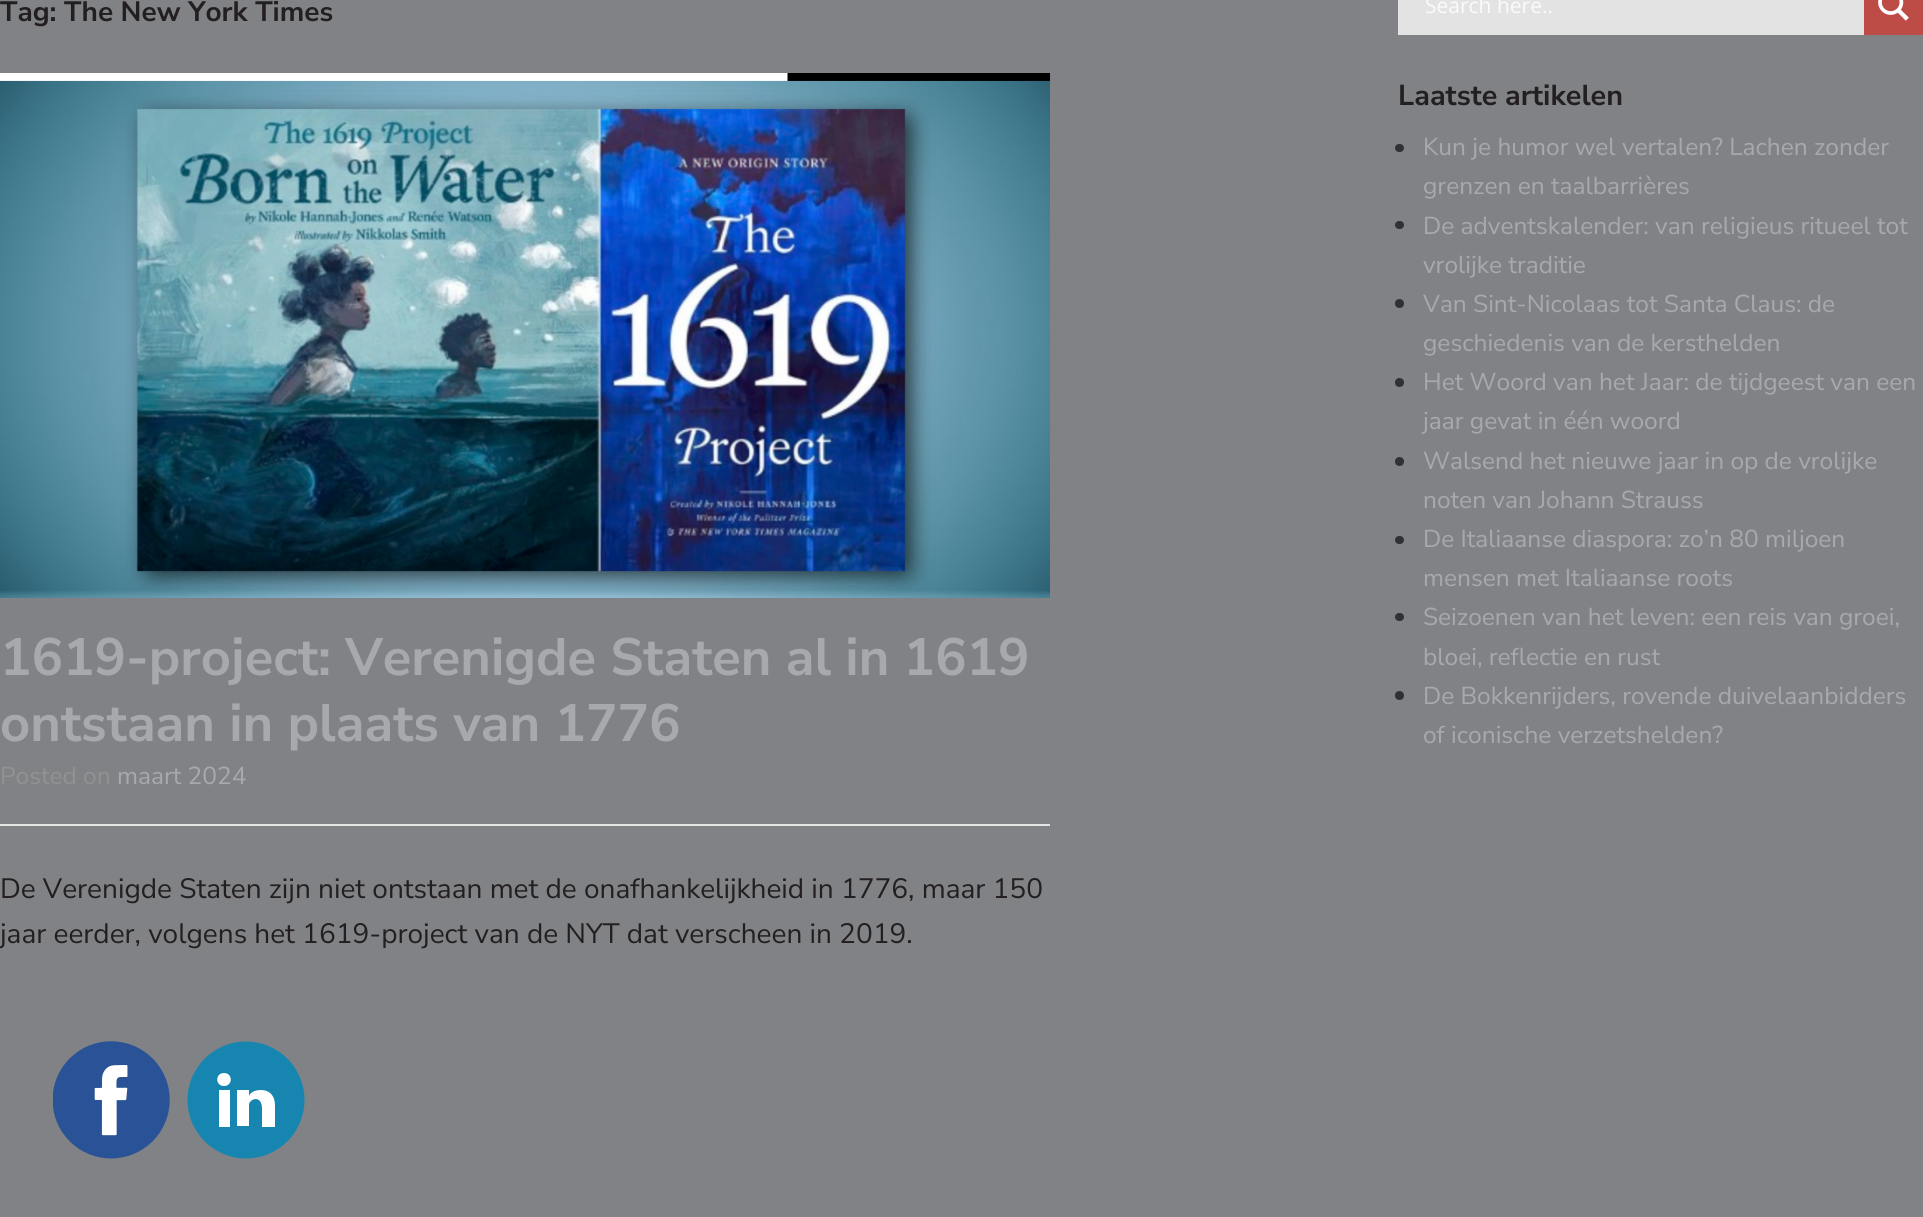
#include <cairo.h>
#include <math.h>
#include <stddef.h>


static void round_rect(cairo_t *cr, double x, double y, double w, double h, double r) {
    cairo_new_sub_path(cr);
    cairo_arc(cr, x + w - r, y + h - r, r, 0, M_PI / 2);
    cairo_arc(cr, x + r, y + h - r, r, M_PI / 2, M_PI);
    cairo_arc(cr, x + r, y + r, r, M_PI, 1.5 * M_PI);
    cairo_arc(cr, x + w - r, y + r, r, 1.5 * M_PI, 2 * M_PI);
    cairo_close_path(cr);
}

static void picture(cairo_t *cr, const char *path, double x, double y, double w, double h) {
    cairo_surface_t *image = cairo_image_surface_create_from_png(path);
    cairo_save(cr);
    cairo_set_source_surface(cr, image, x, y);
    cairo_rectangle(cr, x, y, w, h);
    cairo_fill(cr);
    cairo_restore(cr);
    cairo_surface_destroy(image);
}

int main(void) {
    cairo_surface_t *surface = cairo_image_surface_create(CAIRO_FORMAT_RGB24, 1923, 1217);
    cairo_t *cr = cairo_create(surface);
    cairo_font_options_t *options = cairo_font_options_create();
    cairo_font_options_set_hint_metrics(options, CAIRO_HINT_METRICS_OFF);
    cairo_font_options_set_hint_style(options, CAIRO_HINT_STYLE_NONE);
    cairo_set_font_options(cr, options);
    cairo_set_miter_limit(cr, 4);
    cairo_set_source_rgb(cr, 0.502, 0.51, 0.522);
    cairo_paint(cr);
    cairo_select_font_face(cr, "Nunito Sans", CAIRO_FONT_SLANT_NORMAL, CAIRO_FONT_WEIGHT_BOLD);
    cairo_set_font_size(cr, 28);
    cairo_set_source_rgb(cr, 0.137, 0.122, 0.125);
    cairo_move_to(cr, 0, 21);
    cairo_show_text(cr, "Tag: The New York Times");
    picture(cr, "img1.png", 0, 73, 1050, 525);
    cairo_set_source_rgb(cr, 0.894, 0.894, 0.894);
    cairo_rectangle(cr, 0, 824, 1050, 2);
    cairo_fill(cr);
    cairo_set_font_size(cr, 52.5);
    cairo_set_source_rgb(cr, 0.659, 0.663, 0.678);
    cairo_move_to(cr, 0, 675);
    cairo_show_text(cr, "1619-project: Verenigde Staten al in 1619");
    cairo_move_to(cr, 0, 741);
    cairo_show_text(cr, "ontstaan in plaats van 1776");
    cairo_select_font_face(cr, "Nunito Sans", CAIRO_FONT_SLANT_NORMAL, CAIRO_FONT_WEIGHT_NORMAL);
    cairo_set_font_size(cr, 24.5);
    cairo_set_source_rgb(cr, 0.573, 0.573, 0.573);
    cairo_move_to(cr, 0, 784);
    cairo_show_text(cr, "Posted on");
    cairo_set_source_rgb(cr, 0.659, 0.663, 0.678);
    cairo_move_to(cr, 117, 784);
    cairo_show_text(cr, "maart 2024");
    cairo_set_font_size(cr, 28);
    cairo_set_source_rgb(cr, 0.137, 0.122, 0.125);
    cairo_move_to(cr, 0, 898);
    cairo_show_text(cr, "De Verenigde Staten zijn niet ontstaan met de onafhankelijkheid in 1776, maar 150");
    cairo_move_to(cr, 0, 943);
    cairo_show_text(cr, "jaar eerder, volgens het 1619-project van de NYT dat verscheen in 2019.");
    cairo_set_source_rgb(cr, 0.89, 0.89, 0.894);
    cairo_rectangle(cr, 1398, 0, 466, 35);
    cairo_fill(cr);
    cairo_select_font_face(cr, "Open Sans", CAIRO_FONT_SLANT_NORMAL, CAIRO_FONT_WEIGHT_NORMAL);
    cairo_set_font_size(cr, 21);
    cairo_set_source_rgb(cr, 0.984, 0.984, 0.984);
    cairo_move_to(cr, 1425, 13);
    cairo_show_text(cr, "Search here..");
    cairo_set_source_rgb(cr, 0.745, 0.298, 0.275);
    cairo_rectangle(cr, 1864, 0, 59, 35);
    cairo_fill(cr);
    picture(cr, "img2.png", 1878, 0, 31, 21);
    cairo_select_font_face(cr, "Nunito Sans", CAIRO_FONT_SLANT_NORMAL, CAIRO_FONT_WEIGHT_BOLD);
    cairo_set_font_size(cr, 28.75);
    cairo_set_source_rgb(cr, 0.137, 0.122, 0.125);
    cairo_move_to(cr, 1398, 105);
    cairo_show_text(cr, "Laatste artikelen");
    cairo_set_source_rgb(cr, 0.188, 0.192, 0.208);
    round_rect(cr, 1395, 144, 9, 8, 4);
    cairo_fill(cr);
    cairo_select_font_face(cr, "Nunito Sans", CAIRO_FONT_SLANT_NORMAL, CAIRO_FONT_WEIGHT_NORMAL);
    cairo_set_font_size(cr, 24.5);
    cairo_set_source_rgb(cr, 0.659, 0.663, 0.678);
    cairo_move_to(cr, 1423, 155);
    cairo_show_text(cr, "Kun je humor wel vertalen? Lachen zonder");
    cairo_move_to(cr, 1423, 194);
    cairo_show_text(cr, "grenzen en taalbarrières");
    cairo_set_source_rgb(cr, 0.188, 0.192, 0.208);
    round_rect(cr, 1395, 221, 9, 8, 4);
    cairo_fill(cr);
    cairo_set_source_rgb(cr, 0.659, 0.663, 0.678);
    cairo_move_to(cr, 1423, 234);
    cairo_show_text(cr, "De adventskalender: van religieus ritueel tot");
    cairo_move_to(cr, 1423, 273);
    cairo_show_text(cr, "vrolijke traditie");
    cairo_set_source_rgb(cr, 0.188, 0.192, 0.208);
    cairo_new_path(cr);
    cairo_arc(cr, 1399.5, 303.5, 4.5, 0, 2 * M_PI);
    cairo_fill(cr);
    cairo_set_source_rgb(cr, 0.659, 0.663, 0.678);
    cairo_move_to(cr, 1423, 312);
    cairo_show_text(cr, "Van Sint-Nicolaas tot Santa Claus: de");
    cairo_move_to(cr, 1423, 351);
    cairo_show_text(cr, "geschiedenis van de kersthelden");
    cairo_set_source_rgb(cr, 0.188, 0.192, 0.208);
    cairo_new_path(cr);
    cairo_arc(cr, 1399.5, 382.5, 4.5, 0, 2 * M_PI);
    cairo_fill(cr);
    cairo_set_source_rgb(cr, 0.659, 0.663, 0.678);
    cairo_move_to(cr, 1423, 390);
    cairo_show_text(cr, "Het Woord van het Jaar: de tijdgeest van een");
    cairo_move_to(cr, 1423, 429);
    cairo_show_text(cr, "jaar gevat in één woord");
    cairo_set_source_rgb(cr, 0.188, 0.192, 0.208);
    cairo_new_path(cr);
    cairo_arc(cr, 1399.5, 461.5, 4.5, 0, 2 * M_PI);
    cairo_fill(cr);
    cairo_set_source_rgb(cr, 0.659, 0.663, 0.678);
    cairo_move_to(cr, 1423, 469);
    cairo_show_text(cr, "Walsend het nieuwe jaar in op de vrolijke");
    cairo_move_to(cr, 1423, 508);
    cairo_show_text(cr, "noten van Johann Strauss");
    cairo_set_source_rgb(cr, 0.188, 0.192, 0.208);
    round_rect(cr, 1395, 536, 9, 8, 4);
    cairo_fill(cr);
    cairo_set_source_rgb(cr, 0.659, 0.663, 0.678);
    cairo_move_to(cr, 1423, 547);
    cairo_show_text(cr, "De Italiaanse diaspora: zo’n 80 miljoen");
    cairo_move_to(cr, 1423, 586);
    cairo_show_text(cr, "mensen met Italiaanse roots");
    cairo_set_source_rgb(cr, 0.188, 0.192, 0.208);
    round_rect(cr, 1395, 613, 9, 8, 4);
    cairo_fill(cr);
    cairo_set_source_rgb(cr, 0.659, 0.663, 0.678);
    cairo_move_to(cr, 1423, 625);
    cairo_show_text(cr, "Seizoenen van het leven: een reis van groei,");
    cairo_move_to(cr, 1423, 665);
    cairo_show_text(cr, "bloei, reflectie en rust");
    cairo_set_source_rgb(cr, 0.188, 0.192, 0.208);
    cairo_new_path(cr);
    cairo_arc(cr, 1399.5, 695.5, 4.5, 0, 2 * M_PI);
    cairo_fill(cr);
    cairo_set_source_rgb(cr, 0.659, 0.663, 0.678);
    cairo_move_to(cr, 1423, 704);
    cairo_show_text(cr, "De Bokkenrijders, rovende duivelaanbidders");
    cairo_move_to(cr, 1423, 743);
    cairo_show_text(cr, "of iconische verzetshelden?");
    picture(cr, "img3.png", 53, 1041, 117, 118);
    cairo_set_source_rgb(cr, 0.086, 0.525, 0.69);
    cairo_arc(cr, 246, 1100, 58.5, 0, 2 * M_PI);
    cairo_fill(cr);
    cairo_set_source_rgb(cr, 1, 1, 1);
    cairo_new_path(cr);
    cairo_move_to(cr, 230, 1127);
    cairo_line_to(cr, 219, 1127);
    cairo_line_to(cr, 219, 1090);
    cairo_line_to(cr, 230, 1090);
    cairo_close_path(cr);
    cairo_move_to(cr, 224, 1086);
    cairo_curve_to(cr, 215, 1086, 215, 1073, 224, 1073);
    cairo_curve_to(cr, 233, 1073, 233, 1086, 224, 1086);
    cairo_close_path(cr);
    cairo_move_to(cr, 275, 1127);
    cairo_line_to(cr, 262, 1127);
    cairo_line_to(cr, 262, 1114);
    cairo_curve_to(cr, 262, 1109, 263, 1100, 256, 1099);
    cairo_curve_to(cr, 253, 1099, 250, 1101, 249, 1104);
    cairo_line_to(cr, 249, 1126);
    cairo_line_to(cr, 237, 1126);
    cairo_line_to(cr, 237, 1090);
    cairo_line_to(cr, 249, 1090);
    cairo_line_to(cr, 249, 1096);
    cairo_curve_to(cr, 250, 1093, 254, 1090, 261, 1090);
    cairo_curve_to(cr, 269, 1090, 275, 1095, 275, 1106);
    cairo_close_path(cr);
    cairo_fill(cr);
    cairo_surface_write_to_png(surface, "page.png");
    cairo_font_options_destroy(options);
    cairo_destroy(cr);
    cairo_surface_destroy(surface);
    return 0;
}
